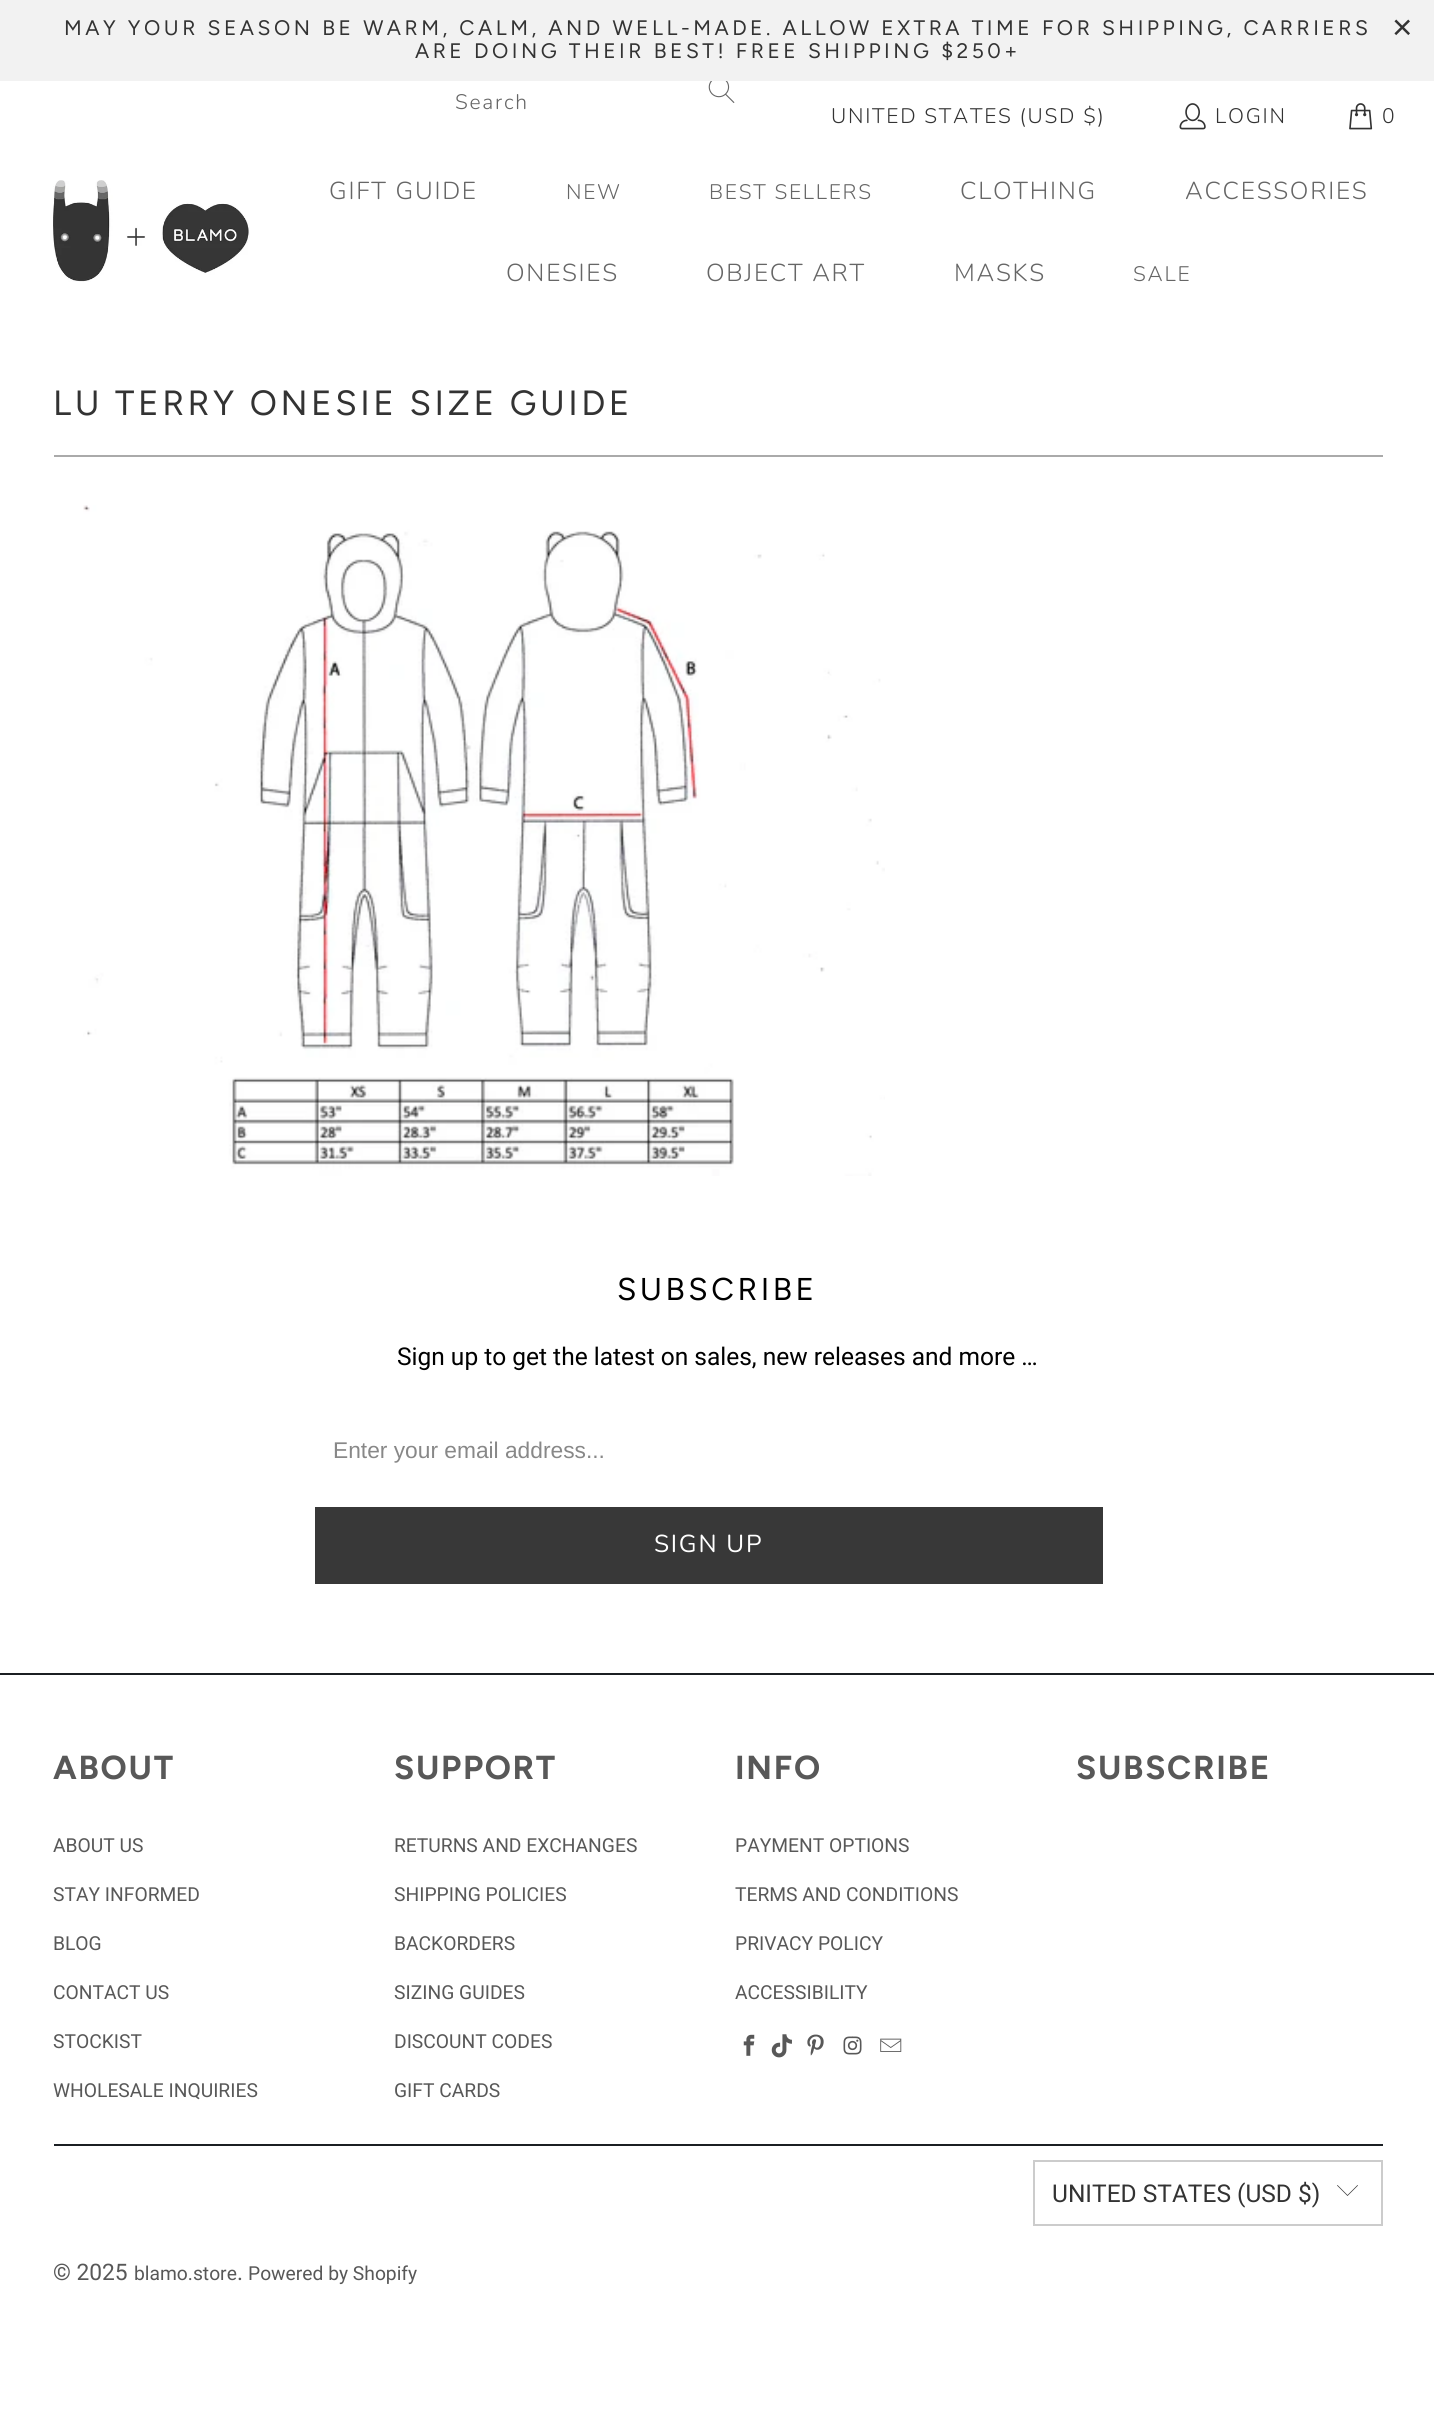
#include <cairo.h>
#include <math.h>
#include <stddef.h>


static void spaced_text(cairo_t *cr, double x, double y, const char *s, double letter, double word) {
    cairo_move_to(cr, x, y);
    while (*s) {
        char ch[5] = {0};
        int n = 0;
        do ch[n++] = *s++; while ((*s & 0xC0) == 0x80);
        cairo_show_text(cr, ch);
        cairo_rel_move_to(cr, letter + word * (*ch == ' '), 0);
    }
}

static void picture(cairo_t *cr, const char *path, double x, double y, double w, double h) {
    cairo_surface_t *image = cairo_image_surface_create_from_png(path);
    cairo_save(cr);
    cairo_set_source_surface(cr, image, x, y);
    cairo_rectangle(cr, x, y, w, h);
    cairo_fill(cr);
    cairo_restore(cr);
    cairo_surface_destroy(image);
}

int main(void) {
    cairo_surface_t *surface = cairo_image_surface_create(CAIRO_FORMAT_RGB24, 1434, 2415);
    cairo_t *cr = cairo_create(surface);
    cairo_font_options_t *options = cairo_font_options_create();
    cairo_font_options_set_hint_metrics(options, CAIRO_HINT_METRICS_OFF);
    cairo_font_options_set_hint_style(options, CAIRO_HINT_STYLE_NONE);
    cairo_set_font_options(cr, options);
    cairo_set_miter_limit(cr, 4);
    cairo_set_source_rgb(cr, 1, 1, 1);
    cairo_paint(cr);
    cairo_set_source_rgb(cr, 0.949, 0.949, 0.949);
    cairo_rectangle(cr, 0, 0, 1434, 81);
    cairo_fill(cr);
    cairo_select_font_face(cr, "Figtree", CAIRO_FONT_SLANT_NORMAL, CAIRO_FONT_WEIGHT_NORMAL);
    cairo_set_font_size(cr, 21);
    cairo_set_source_rgb(cr, 0.2, 0.2, 0.2);
    spaced_text(cr, 64, 35, "MAY YOUR SEASON BE WARM, CALM, AND WELL-MADE. ALLOW EXTRA TIME FOR SHIPPING, CARRIERS", 3.5, 0);
    spaced_text(cr, 415, 58, "ARE DOING THEIR BEST! FREE SHIPPING $250+", 3.5, 0);
    cairo_select_font_face(cr, "Liberation Sans", CAIRO_FONT_SLANT_NORMAL, CAIRO_FONT_WEIGHT_NORMAL);
    cairo_set_font_size(cr, 35);
    spaced_text(cr, 1392, 39, "×", 3.5, 0);
    cairo_select_font_face(cr, "Nunito Light", CAIRO_FONT_SLANT_NORMAL, CAIRO_FONT_WEIGHT_NORMAL);
    cairo_set_font_size(cr, 21);
    cairo_set_source_rgb(cr, 0.4, 0.4, 0.4);
    spaced_text(cr, 455, 109, "Search", 1.75, 0);
    picture(cr, "img1.png", 708, 81, 27, 22);
    picture(cr, "img2.png", 53, 180, 197, 102);
    cairo_set_font_size(cr, 24.5);
    spaced_text(cr, 329, 199, "GIFT GUIDE", 1.75, 0);
    cairo_set_font_size(cr, 21);
    spaced_text(cr, 566, 199, "NEW", 1.75, 0);
    spaced_text(cr, 709, 199, "BEST SELLERS", 1.75, 0);
    cairo_set_font_size(cr, 24.5);
    spaced_text(cr, 960, 199, "CLOTHING", 1.75, 0);
    spaced_text(cr, 1185, 199, "ACCESSORIES", 1.75, 0);
    spaced_text(cr, 506, 281, "ONESIES", 1.75, 0);
    spaced_text(cr, 706, 281, "OBJECT ART", 1.75, 0);
    spaced_text(cr, 954, 281, "MASKS", 1.75, 0);
    cairo_set_font_size(cr, 21);
    spaced_text(cr, 1133, 281, "SALE", 1.75, 0);
    cairo_set_source_rgb(cr, 0.2, 0.2, 0.2);
    spaced_text(cr, 831, 123, "UNITED STATES (USD $)", 1.75, 0);
    picture(cr, "img3.png", 1179, 103, 27, 27);
    spaced_text(cr, 1215, 123, "LOGIN", 1.75, 0);
    picture(cr, "img4.png", 1349, 103, 24, 27);
    spaced_text(cr, 1382, 123, "0", 1.75, 0);
    cairo_select_font_face(cr, "Figtree", CAIRO_FONT_SLANT_NORMAL, CAIRO_FONT_WEIGHT_NORMAL);
    cairo_set_font_size(cr, 35);
    spaced_text(cr, 53, 415, "LU TERRY ONESIE SIZE GUIDE", 3.5, 0);
    cairo_set_source_rgb(cr, 0.667, 0.667, 0.667);
    cairo_rectangle(cr, 54, 455, 1329, 2);
    cairo_fill(cr);
    picture(cr, "img5.png", 83, 505, 802, 671);
    cairo_set_font_size(cr, 31.5);
    cairo_set_source_rgb(cr, 0, 0, 0);
    spaced_text(cr, 617, 1300, "SUBSCRIBE", 3.5, 0);
    cairo_select_font_face(cr, "Roboto", CAIRO_FONT_SLANT_NORMAL, CAIRO_FONT_WEIGHT_NORMAL);
    cairo_set_font_size(cr, 24.5);
    cairo_move_to(cr, 397, 1365);
    cairo_show_text(cr, "Sign up to get the latest on sales, new releases and more …");
    cairo_select_font_face(cr, "Liberation Sans", CAIRO_FONT_SLANT_NORMAL, CAIRO_FONT_WEIGHT_NORMAL);
    cairo_set_font_size(cr, 22.75);
    cairo_set_source_rgb(cr, 0.533, 0.533, 0.533);
    cairo_move_to(cr, 333, 1458);
    cairo_show_text(cr, "Enter your email address...");
    cairo_set_source_rgb(cr, 0.22, 0.22, 0.22);
    cairo_rectangle(cr, 315, 1507, 788, 77);
    cairo_fill(cr);
    cairo_select_font_face(cr, "Nunito", CAIRO_FONT_SLANT_NORMAL, CAIRO_FONT_WEIGHT_NORMAL);
    cairo_set_font_size(cr, 24.5);
    cairo_set_source_rgb(cr, 1, 1, 1);
    spaced_text(cr, 654, 1552, "SIGN UP", 1.75, 0);
    cairo_set_source_rgb(cr, 0.106, 0.122, 0.137);
    cairo_rectangle(cr, 0, 1673, 1434, 2);
    cairo_fill(cr);
    cairo_select_font_face(cr, "Figtree", CAIRO_FONT_SLANT_NORMAL, CAIRO_FONT_WEIGHT_BOLD);
    cairo_set_font_size(cr, 33.25);
    cairo_set_source_rgb(cr, 0.345, 0.345, 0.345);
    spaced_text(cr, 53, 1779, "ABOUT", 1.75, 0);
    cairo_select_font_face(cr, "Roboto", CAIRO_FONT_SLANT_NORMAL, CAIRO_FONT_WEIGHT_NORMAL);
    cairo_set_font_size(cr, 19.25);
    cairo_move_to(cr, 53, 1852);
    cairo_show_text(cr, "ABOUT US");
    cairo_move_to(cr, 53, 1901);
    cairo_show_text(cr, "STAY INFORMED");
    cairo_move_to(cr, 53, 1950);
    cairo_show_text(cr, "BLOG");
    cairo_move_to(cr, 53, 1999);
    cairo_show_text(cr, "CONTACT US");
    cairo_move_to(cr, 53, 2048);
    cairo_show_text(cr, "STOCKIST");
    cairo_move_to(cr, 53, 2097);
    cairo_show_text(cr, "WHOLESALE INQUIRIES");
    cairo_select_font_face(cr, "Figtree", CAIRO_FONT_SLANT_NORMAL, CAIRO_FONT_WEIGHT_BOLD);
    cairo_set_font_size(cr, 33.25);
    spaced_text(cr, 394, 1779, "SUPPORT", 1.75, 0);
    cairo_select_font_face(cr, "Roboto", CAIRO_FONT_SLANT_NORMAL, CAIRO_FONT_WEIGHT_NORMAL);
    cairo_set_font_size(cr, 19.25);
    cairo_move_to(cr, 394, 1852);
    cairo_show_text(cr, "RETURNS AND EXCHANGES");
    cairo_move_to(cr, 394, 1901);
    cairo_show_text(cr, "SHIPPING POLICIES");
    cairo_move_to(cr, 394, 1950);
    cairo_show_text(cr, "BACKORDERS");
    cairo_move_to(cr, 394, 1999);
    cairo_show_text(cr, "SIZING GUIDES");
    cairo_move_to(cr, 394, 2048);
    cairo_show_text(cr, "DISCOUNT CODES");
    cairo_move_to(cr, 394, 2097);
    cairo_show_text(cr, "GIFT CARDS");
    cairo_select_font_face(cr, "Figtree", CAIRO_FONT_SLANT_NORMAL, CAIRO_FONT_WEIGHT_BOLD);
    cairo_set_font_size(cr, 33.25);
    spaced_text(cr, 735, 1779, "INFO", 1.75, 0);
    cairo_select_font_face(cr, "Roboto", CAIRO_FONT_SLANT_NORMAL, CAIRO_FONT_WEIGHT_NORMAL);
    cairo_set_font_size(cr, 19.25);
    cairo_move_to(cr, 735, 1852);
    cairo_show_text(cr, "PAYMENT OPTIONS");
    cairo_move_to(cr, 735, 1901);
    cairo_show_text(cr, "TERMS AND CONDITIONS");
    cairo_move_to(cr, 735, 1950);
    cairo_show_text(cr, "PRIVACY POLICY");
    cairo_move_to(cr, 735, 1999);
    cairo_show_text(cr, "ACCESSIBILITY");
    picture(cr, "img6.png", 743, 2034, 12, 22);
    picture(cr, "img7.png", 771, 2034, 21, 24);
    picture(cr, "img8.png", 807, 2034, 17, 22);
    picture(cr, "img9.png", 843, 2036, 19, 19);
    picture(cr, "img10.png", 880, 2038, 22, 14);
    cairo_select_font_face(cr, "Figtree", CAIRO_FONT_SLANT_NORMAL, CAIRO_FONT_WEIGHT_BOLD);
    cairo_set_font_size(cr, 33.25);
    spaced_text(cr, 1076, 1779, "SUBSCRIBE", 1.75, 0);
    cairo_set_source_rgb(cr, 0.106, 0.122, 0.137);
    cairo_rectangle(cr, 54, 2144, 1329, 2);
    cairo_fill(cr);
    cairo_rectangle(cr, 1034, 2161, 348, 64);
    cairo_set_source_rgb(cr, 0.8, 0.8, 0.8);
    cairo_stroke(cr);
    cairo_select_font_face(cr, "Roboto", CAIRO_FONT_SLANT_NORMAL, CAIRO_FONT_WEIGHT_NORMAL);
    cairo_set_font_size(cr, 24.5);
    cairo_set_source_rgb(cr, 0.2, 0.2, 0.2);
    cairo_move_to(cr, 1052, 2202);
    cairo_show_text(cr, "UNITED STATES (USD $)");
    cairo_set_source_rgb(cr, 0.22, 0.22, 0.22);
    cairo_new_path(cr);
    cairo_move_to(cr, 1347.5, 2196);
    cairo_line_to(cr, 1337, 2185.5);
    cairo_line_to(cr, 1337.5, 2185);
    cairo_line_to(cr, 1347.5, 2195);
    cairo_line_to(cr, 1357.5, 2185);
    cairo_line_to(cr, 1358, 2185.5);
    cairo_close_path(cr);
    cairo_fill(cr);
    cairo_set_font_size(cr, 22.75);
    cairo_set_source_rgb(cr, 0.345, 0.345, 0.345);
    cairo_move_to(cr, 53, 2280);
    cairo_show_text(cr, "© 2025");
    cairo_set_font_size(cr, 19.25);
    cairo_move_to(cr, 134, 2280);
    cairo_show_text(cr, "blamo.store");
    cairo_set_font_size(cr, 22.75);
    cairo_move_to(cr, 237, 2280);
    cairo_show_text(cr, ".");
    cairo_set_font_size(cr, 19.25);
    cairo_move_to(cr, 248, 2280);
    cairo_show_text(cr, "Powered by Shopify");
    cairo_surface_write_to_png(surface, "page.png");
    cairo_font_options_destroy(options);
    cairo_destroy(cr);
    cairo_surface_destroy(surface);
    return 0;
}
